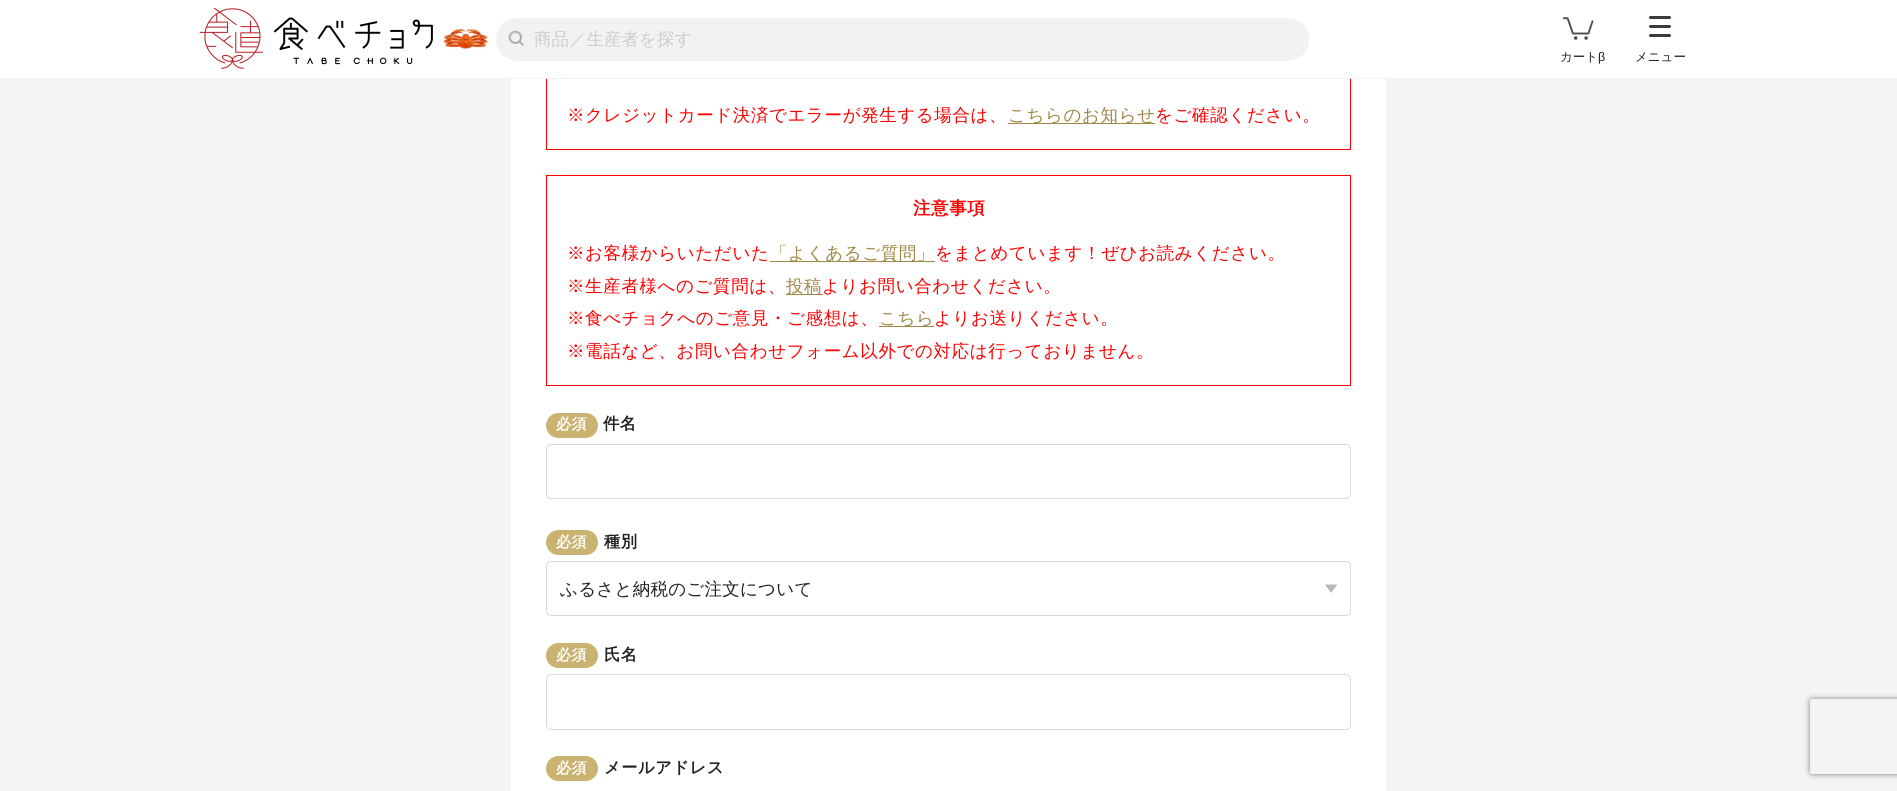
#include <cairo.h>
#include <math.h>
#include <stddef.h>


static void spaced_text(cairo_t *cr, double x, double y, const char *s, double letter, double word) {
    cairo_move_to(cr, x, y);
    while (*s) {
        char ch[5] = {0};
        int n = 0;
        do ch[n++] = *s++; while ((*s & 0xC0) == 0x80);
        cairo_show_text(cr, ch);
        cairo_rel_move_to(cr, letter + word * (*ch == ' '), 0);
    }
}

static void round_rect(cairo_t *cr, double x, double y, double w, double h, double r) {
    cairo_new_sub_path(cr);
    cairo_arc(cr, x + w - r, y + h - r, r, 0, M_PI / 2);
    cairo_arc(cr, x + r, y + h - r, r, M_PI / 2, M_PI);
    cairo_arc(cr, x + r, y + r, r, M_PI, 1.5 * M_PI);
    cairo_arc(cr, x + w - r, y + r, r, 1.5 * M_PI, 2 * M_PI);
    cairo_close_path(cr);
}

static void shadow(cairo_t *cr, double x, double y, double w, double h, double r, double blur, double alpha) {
    cairo_push_group_with_content(cr, CAIRO_CONTENT_ALPHA);
    cairo_set_operator(cr, CAIRO_OPERATOR_SOURCE);
    for (int i = 15; i >= -15 && fmin(w, h) + blur * i / 3 > 0; i -= 2) {
        double e = blur * i / 6;
        cairo_set_source_rgba(cr, 0, 0, 0, alpha * erfc((i - 1) / 8.5) / 2);
        round_rect(cr, x - e, y - e, w + 2 * e, h + 2 * e, fmax(0, fmin(r + e + blur * .6, fmin(w, h) / 2 + e)));
        cairo_fill(cr);
    }
    cairo_pattern_t *soft = cairo_pop_group(cr);
    cairo_mask(cr, soft);
    cairo_pattern_destroy(soft);
}

static void picture(cairo_t *cr, const char *path, double x, double y, double w, double h) {
    cairo_surface_t *image = cairo_image_surface_create_from_png(path);
    cairo_save(cr);
    cairo_set_source_surface(cr, image, x, y);
    cairo_rectangle(cr, x, y, w, h);
    cairo_fill(cr);
    cairo_restore(cr);
    cairo_surface_destroy(image);
}

int main(void) {
    cairo_surface_t *surface = cairo_image_surface_create(CAIRO_FORMAT_RGB24, 1897, 791);
    cairo_t *cr = cairo_create(surface);
    cairo_font_options_t *options = cairo_font_options_create();
    cairo_font_options_set_hint_metrics(options, CAIRO_HINT_METRICS_OFF);
    cairo_font_options_set_hint_style(options, CAIRO_HINT_STYLE_NONE);
    cairo_set_font_options(cr, options);
    cairo_set_miter_limit(cr, 4);
    cairo_set_source_rgb(cr, 0.957, 0.957, 0.957);
    cairo_paint(cr);
    cairo_set_source_rgb(cr, 1, 1, 1);
    cairo_rectangle(cr, 511, 79, 875, 712);
    cairo_fill(cr);
    cairo_rectangle(cr, 546.5, 36.5, 804, 113);
    cairo_set_source_rgb(cr, 1, 0, 0);
    cairo_set_line_width(cr, 1);
    cairo_stroke(cr);
    cairo_set_source_rgb(cr, 1, 1, 1);
    cairo_rectangle(cr, 0, 0, 1897, 78);
    cairo_fill(cr);
    cairo_set_source_rgb(cr, 0.949, 0.949, 0.949);
    cairo_rectangle(cr, 546, 78, 805, 1);
    cairo_fill(cr);
    picture(cr, "img1.png", 199, 8, 234, 61);
    picture(cr, "img2.png", 444, 27, 44, 23);
    round_rect(cr, 496, 18, 813, 43, 21.5);
    cairo_fill(cr);
    picture(cr, "img3.png", 508, 30, 16, 16);
    cairo_select_font_face(cr, "WenQuanYi Zen Hei Medium", CAIRO_FONT_SLANT_NORMAL, CAIRO_FONT_WEIGHT_NORMAL);
    cairo_set_font_size(cr, 17.5);
    cairo_set_source_rgb(cr, 0.8, 0.8, 0.8);
    cairo_move_to(cr, 534, 45);
    cairo_show_text(cr, "商品／生産者を探す");
    picture(cr, "img4.png", 1562, 17, 32, 23);
    cairo_set_font_size(cr, 12.5);
    cairo_set_source_rgb(cr, 0.129, 0.129, 0.129);
    cairo_move_to(cr, 1560, 61);
    cairo_show_text(cr, "カート");
    cairo_select_font_face(cr, "Liberation Sans", CAIRO_FONT_SLANT_NORMAL, CAIRO_FONT_WEIGHT_NORMAL);
    cairo_move_to(cr, 1598, 61);
    cairo_show_text(cr, "β");
    cairo_set_source_rgb(cr, 0.251, 0.227, 0.224);
    round_rect(cr, 1649, 16, 22, 3, 1.5);
    cairo_fill(cr);
    round_rect(cr, 1649, 25, 22, 3, 1.5);
    cairo_fill(cr);
    round_rect(cr, 1649, 34, 22, 3, 1.5);
    cairo_fill(cr);
    cairo_select_font_face(cr, "WenQuanYi Zen Hei Medium", CAIRO_FONT_SLANT_NORMAL, CAIRO_FONT_WEIGHT_NORMAL);
    cairo_set_source_rgb(cr, 0.129, 0.129, 0.129);
    cairo_move_to(cr, 1635, 61);
    cairo_show_text(cr, "メニュー");
    cairo_set_font_size(cr, 17.5);
    cairo_set_source_rgb(cr, 1, 0, 0);
    spaced_text(cr, 567, 121, "※クレジットカード決済でエラーが発生する場合は、", 0.6, 0);
    cairo_set_source_rgb(cr, 0.624, 0.529, 0.271);
    cairo_rectangle(cr, 1008, 123, 147, 1);
    cairo_fill(cr);
    spaced_text(cr, 1008, 121, "こちらのお知らせ", 0.6, 0);
    cairo_set_source_rgb(cr, 1, 0, 0);
    spaced_text(cr, 1155, 121, "をご確認ください。", 0.6, 0);
    cairo_rectangle(cr, 546.5, 175.5, 804, 210);
    cairo_stroke(cr);
    cairo_select_font_face(cr, "WenQuanYi Zen Hei", CAIRO_FONT_SLANT_NORMAL, CAIRO_FONT_WEIGHT_BOLD);
    spaced_text(cr, 913, 214, "注意事項", 0.6, 0);
    cairo_select_font_face(cr, "WenQuanYi Zen Hei Medium", CAIRO_FONT_SLANT_NORMAL, CAIRO_FONT_WEIGHT_NORMAL);
    spaced_text(cr, 567, 259, "※お客様からいただいた", 0.6, 0);
    cairo_set_source_rgb(cr, 0.624, 0.529, 0.271);
    cairo_rectangle(cr, 770, 261, 165, 1);
    cairo_fill(cr);
    spaced_text(cr, 770, 259, "「よくあるご質問」", 0.6, 0);
    cairo_set_source_rgb(cr, 1, 0, 0);
    spaced_text(cr, 935, 259, "をまとめています！ぜひお読みください。", 0.6, 0);
    spaced_text(cr, 567, 292, "※生産者様へのご質問は、", 0.6, 0);
    cairo_set_source_rgb(cr, 0.624, 0.529, 0.271);
    cairo_rectangle(cr, 786, 294, 37, 1);
    cairo_fill(cr);
    spaced_text(cr, 786, 292, "投稿", 0.6, 0);
    cairo_set_source_rgb(cr, 1, 0, 0);
    spaced_text(cr, 822, 292, "よりお問い合わせください。", 0.6, 0);
    spaced_text(cr, 567, 324, "※食べチョクへのご意見・ご感想は、", 0.6, 0);
    cairo_set_source_rgb(cr, 0.624, 0.529, 0.271);
    cairo_rectangle(cr, 879, 326, 55, 1);
    cairo_fill(cr);
    spaced_text(cr, 879, 324, "こちら", 0.6, 0);
    cairo_set_source_rgb(cr, 1, 0, 0);
    spaced_text(cr, 934, 324, "よりお送りください。", 0.6, 0);
    spaced_text(cr, 567, 357, "※電話など、お問い合わせフォーム以外での対応は行っておりません。", 0.6, 0);
    cairo_set_source_rgb(cr, 0.792, 0.698, 0.439);
    round_rect(cr, 546, 413, 52, 25, 12.5);
    cairo_fill(cr);
    cairo_select_font_face(cr, "WenQuanYi Zen Hei", CAIRO_FONT_SLANT_NORMAL, CAIRO_FONT_WEIGHT_BOLD);
    cairo_set_font_size(cr, 15);
    cairo_set_source_rgb(cr, 1, 1, 1);
    spaced_text(cr, 556, 429, "必須", 0.6, 0);
    cairo_set_font_size(cr, 16.25);
    cairo_set_source_rgb(cr, 0.129, 0.129, 0.129);
    spaced_text(cr, 603, 429, "件名", 0.6, 0);
    round_rect(cr, 546.5, 444.5, 804, 54, 4.5);
    cairo_set_source_rgb(cr, 0.851, 0.851, 0.851);
    cairo_stroke(cr);
    cairo_set_source_rgb(cr, 0.792, 0.698, 0.439);
    round_rect(cr, 546, 530, 52, 25, 12.5);
    cairo_fill(cr);
    cairo_set_font_size(cr, 15);
    cairo_set_source_rgb(cr, 1, 1, 1);
    spaced_text(cr, 556, 547, "必須", 0.6, 0);
    cairo_set_font_size(cr, 16.25);
    cairo_set_source_rgb(cr, 0.129, 0.129, 0.129);
    spaced_text(cr, 604, 547, "種別", 0.6, 0);
    cairo_set_source_rgb(cr, 0.722, 0.722, 0.722);
    cairo_new_path(cr);
    cairo_move_to(cr, 1331, 593);
    cairo_line_to(cr, 1325, 584.5);
    cairo_line_to(cr, 1337.5, 584.5);
    cairo_close_path(cr);
    cairo_fill(cr);
    round_rect(cr, 546.5, 561.5, 804, 54, 4.5);
    cairo_set_source_rgb(cr, 0.851, 0.851, 0.851);
    cairo_stroke(cr);
    cairo_select_font_face(cr, "WenQuanYi Zen Hei Medium", CAIRO_FONT_SLANT_NORMAL, CAIRO_FONT_WEIGHT_NORMAL);
    cairo_set_font_size(cr, 17.5);
    cairo_set_source_rgb(cr, 0.129, 0.129, 0.129);
    spaced_text(cr, 560, 595, "ふるさと納税のご注文について", 0.25, 0);
    cairo_set_source_rgb(cr, 0.792, 0.698, 0.439);
    round_rect(cr, 546, 643, 52, 25, 12.5);
    cairo_fill(cr);
    cairo_select_font_face(cr, "WenQuanYi Zen Hei", CAIRO_FONT_SLANT_NORMAL, CAIRO_FONT_WEIGHT_BOLD);
    cairo_set_font_size(cr, 15);
    cairo_set_source_rgb(cr, 1, 1, 1);
    spaced_text(cr, 556, 660, "必須", 0.6, 0);
    cairo_set_font_size(cr, 16.25);
    cairo_set_source_rgb(cr, 0.129, 0.129, 0.129);
    spaced_text(cr, 604, 660, "氏名", 0.6, 0);
    round_rect(cr, 546.5, 674.5, 804, 55, 4.5);
    cairo_set_source_rgb(cr, 0.851, 0.851, 0.851);
    cairo_stroke(cr);
    cairo_set_source_rgb(cr, 0.792, 0.698, 0.439);
    round_rect(cr, 546, 756, 52, 25, 12.5);
    cairo_fill(cr);
    cairo_set_font_size(cr, 15);
    cairo_set_source_rgb(cr, 1, 1, 1);
    spaced_text(cr, 556, 773, "必須", 0.6, 0);
    cairo_set_font_size(cr, 16.25);
    cairo_set_source_rgb(cr, 0.129, 0.129, 0.129);
    spaced_text(cr, 604, 773, "メールアドレス", 0.6, 0);
    cairo_save(cr);
    cairo_set_fill_rule(cr, CAIRO_FILL_RULE_EVEN_ODD);
    cairo_new_path(cr);
    cairo_move_to(cr, 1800, 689);
    cairo_line_to(cr, 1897, 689);
    cairo_line_to(cr, 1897, 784);
    cairo_line_to(cr, 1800, 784);
    cairo_close_path(cr);
    cairo_move_to(cr, 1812.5, 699);
    cairo_line_to(cr, 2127.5, 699);
    cairo_curve_to(cr, 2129, 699, 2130, 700, 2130, 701.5);
    cairo_line_to(cr, 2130, 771.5);
    cairo_curve_to(cr, 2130, 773, 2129, 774, 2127.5, 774);
    cairo_line_to(cr, 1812.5, 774);
    cairo_curve_to(cr, 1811, 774, 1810, 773, 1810, 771.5);
    cairo_line_to(cr, 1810, 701.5);
    cairo_curve_to(cr, 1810, 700, 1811, 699, 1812.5, 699);
    cairo_close_path(cr);
    cairo_clip(cr);
    cairo_set_source_rgb(cr, 0.502, 0.502, 0.502);
    shadow(cr, 1810, 699, 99, 75, 2.5, 3, 1);
    cairo_restore(cr);
    cairo_surface_write_to_png(surface, "page.png");
    cairo_font_options_destroy(options);
    cairo_destroy(cr);
    cairo_surface_destroy(surface);
    return 0;
}
